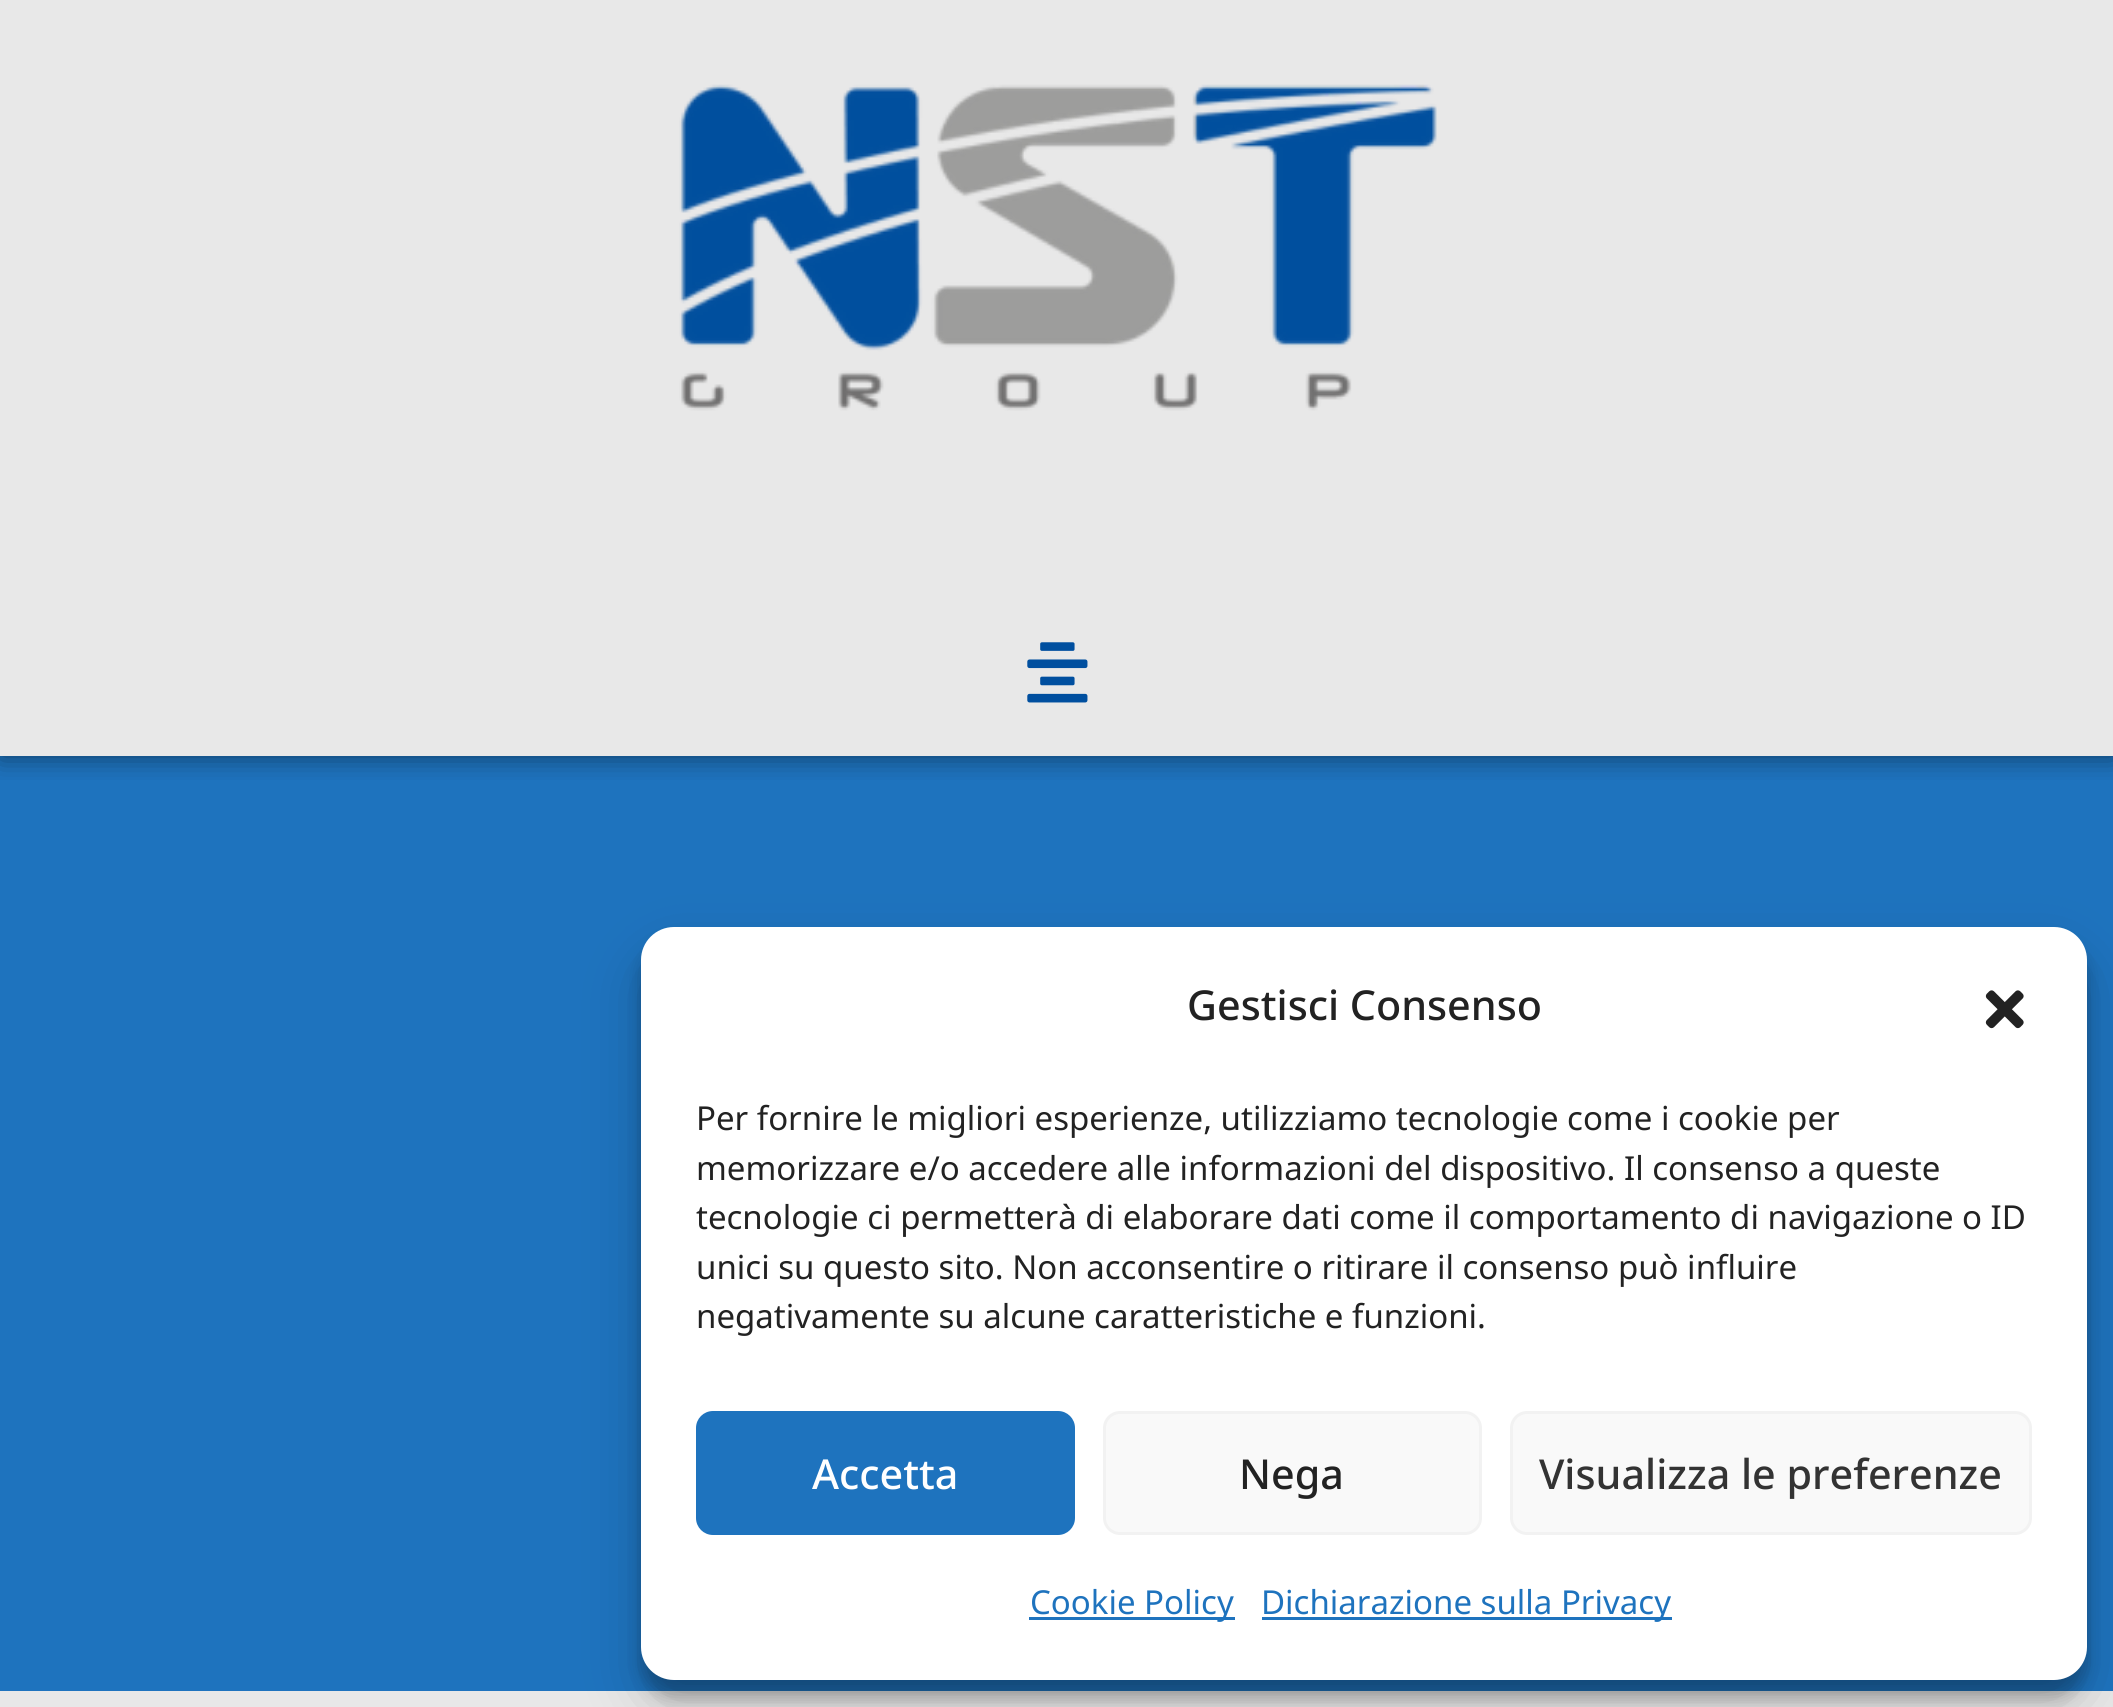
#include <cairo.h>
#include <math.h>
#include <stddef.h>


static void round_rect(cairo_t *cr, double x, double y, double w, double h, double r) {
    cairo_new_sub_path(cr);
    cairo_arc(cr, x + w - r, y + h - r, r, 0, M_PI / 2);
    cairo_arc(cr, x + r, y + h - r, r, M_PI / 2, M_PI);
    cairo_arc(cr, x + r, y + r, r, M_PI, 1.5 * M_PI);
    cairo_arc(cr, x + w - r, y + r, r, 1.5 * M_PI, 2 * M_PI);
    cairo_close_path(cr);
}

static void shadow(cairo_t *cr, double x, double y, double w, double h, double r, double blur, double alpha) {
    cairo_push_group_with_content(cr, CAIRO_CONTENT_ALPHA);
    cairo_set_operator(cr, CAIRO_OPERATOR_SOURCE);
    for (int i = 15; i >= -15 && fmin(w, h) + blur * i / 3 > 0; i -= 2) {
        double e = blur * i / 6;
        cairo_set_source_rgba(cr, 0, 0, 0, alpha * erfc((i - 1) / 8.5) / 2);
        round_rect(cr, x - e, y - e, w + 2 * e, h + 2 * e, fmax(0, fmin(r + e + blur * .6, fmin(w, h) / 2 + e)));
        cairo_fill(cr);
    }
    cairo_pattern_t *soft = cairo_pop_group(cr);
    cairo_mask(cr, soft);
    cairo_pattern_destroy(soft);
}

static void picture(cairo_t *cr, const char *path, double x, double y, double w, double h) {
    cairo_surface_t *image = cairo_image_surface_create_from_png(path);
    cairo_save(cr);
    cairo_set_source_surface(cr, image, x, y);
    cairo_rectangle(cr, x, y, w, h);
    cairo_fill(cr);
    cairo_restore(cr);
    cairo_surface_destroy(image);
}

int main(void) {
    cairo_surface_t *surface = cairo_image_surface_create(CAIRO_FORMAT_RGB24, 2113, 1707);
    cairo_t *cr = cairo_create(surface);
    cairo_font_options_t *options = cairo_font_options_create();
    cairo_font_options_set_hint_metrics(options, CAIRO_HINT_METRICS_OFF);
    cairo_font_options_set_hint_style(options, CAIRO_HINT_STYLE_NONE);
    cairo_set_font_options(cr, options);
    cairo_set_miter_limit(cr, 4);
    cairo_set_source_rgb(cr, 0.91, 0.91, 0.91);
    cairo_paint(cr);
    cairo_set_source_rgb(cr, 0.118, 0.451, 0.745);
    cairo_rectangle(cr, 0, 756, 2113, 935);
    cairo_fill(cr);
    cairo_save(cr);
    cairo_rectangle(cr, 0, 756, 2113, 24);
    cairo_clip(cr);
    cairo_set_source_rgb(cr, 0, 0, 0);
    shadow(cr, 0, 0, 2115, 756, 0, 14, 0.5);
    cairo_restore(cr);
    picture(cr, "img1.png", 679, 84, 758, 327);
    picture(cr, "img2.png", 1027, 642, 61, 61);
    cairo_set_source_rgb(cr, 0, 0, 0);
    shadow(cr, 641, 943, 1446, 754, 33, 8, 0.23);
    shadow(cr, 641, 954, 1446, 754, 33, 27.5, 0.19);
    cairo_set_source_rgb(cr, 1, 1, 1);
    round_rect(cr, 641, 927, 1446, 753, 33);
    cairo_fill(cr);
    cairo_select_font_face(cr, "Noto Sans Medium", CAIRO_FONT_SLANT_NORMAL, CAIRO_FONT_WEIGHT_NORMAL);
    cairo_set_font_size(cr, 41.25);
    cairo_set_source_rgb(cr, 0.133, 0.133, 0.133);
    cairo_move_to(cr, 1187, 1020);
    cairo_show_text(cr, "Gestisci Consenso");
    picture(cr, "img3.png", 1985, 990, 39, 39);
    cairo_select_font_face(cr, "Noto Sans", CAIRO_FONT_SLANT_NORMAL, CAIRO_FONT_WEIGHT_NORMAL);
    cairo_set_font_size(cr, 33);
    cairo_move_to(cr, 696, 1130);
    cairo_show_text(cr, "Per fornire le migliori esperienze, utilizziamo tecnologie come i cookie per");
    cairo_move_to(cr, 696, 1180);
    cairo_show_text(cr, "memorizzare e/o accedere alle informazioni del dispositivo. Il consenso a queste");
    cairo_move_to(cr, 696, 1229);
    cairo_show_text(cr, "tecnologie ci permetterà di elaborare dati come il comportamento di navigazione o ID");
    cairo_move_to(cr, 696, 1279);
    cairo_show_text(cr, "unici su questo sito. Non acconsentire o ritirare il consenso può influire");
    cairo_move_to(cr, 696, 1328);
    cairo_show_text(cr, "negativamente su alcune caratteristiche e funzioni.");
    cairo_set_source_rgb(cr, 0.118, 0.451, 0.745);
    round_rect(cr, 697.5, 1412.5, 376, 121, 15.5);
    cairo_fill_preserve(cr);
    cairo_set_line_width(cr, 3);
    cairo_stroke(cr);
    cairo_select_font_face(cr, "Noto Sans Medium", CAIRO_FONT_SLANT_NORMAL, CAIRO_FONT_WEIGHT_NORMAL);
    cairo_set_font_size(cr, 41.25);
    cairo_set_source_rgb(cr, 1, 1, 1);
    cairo_move_to(cr, 812, 1489);
    cairo_show_text(cr, "Accetta");
    cairo_set_source_rgb(cr, 0.976, 0.976, 0.976);
    round_rect(cr, 1104.5, 1412.5, 376, 121, 15.5);
    cairo_fill_preserve(cr);
    cairo_set_source_rgb(cr, 0.949, 0.949, 0.949);
    cairo_stroke(cr);
    cairo_set_source_rgb(cr, 0.133, 0.133, 0.133);
    cairo_move_to(cr, 1239, 1489);
    cairo_show_text(cr, "Nega");
    cairo_set_source_rgb(cr, 0.976, 0.976, 0.976);
    round_rect(cr, 1511.5, 1412.5, 519, 121, 15.5);
    cairo_fill_preserve(cr);
    cairo_set_source_rgb(cr, 0.949, 0.949, 0.949);
    cairo_stroke(cr);
    cairo_set_source_rgb(cr, 0.2, 0.2, 0.2);
    cairo_move_to(cr, 1539, 1489);
    cairo_show_text(cr, "Visualizza le preferenze");
    cairo_set_source_rgb(cr, 0.118, 0.451, 0.745);
    cairo_rectangle(cr, 1029, 1617, 206, 3);
    cairo_fill(cr);
    cairo_select_font_face(cr, "Noto Sans", CAIRO_FONT_SLANT_NORMAL, CAIRO_FONT_WEIGHT_NORMAL);
    cairo_set_font_size(cr, 33);
    cairo_move_to(cr, 1030, 1614);
    cairo_show_text(cr, "Cookie Policy");
    cairo_rectangle(cr, 1262, 1617, 410, 3);
    cairo_fill(cr);
    cairo_move_to(cr, 1261, 1614);
    cairo_show_text(cr, "Dichiarazione sulla Privacy");
    cairo_surface_write_to_png(surface, "page.png");
    cairo_font_options_destroy(options);
    cairo_destroy(cr);
    cairo_surface_destroy(surface);
    return 0;
}
